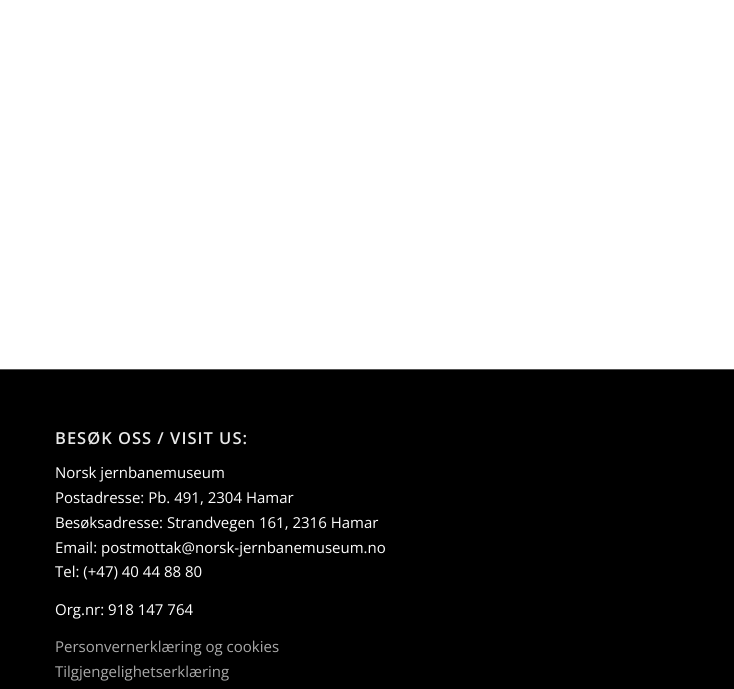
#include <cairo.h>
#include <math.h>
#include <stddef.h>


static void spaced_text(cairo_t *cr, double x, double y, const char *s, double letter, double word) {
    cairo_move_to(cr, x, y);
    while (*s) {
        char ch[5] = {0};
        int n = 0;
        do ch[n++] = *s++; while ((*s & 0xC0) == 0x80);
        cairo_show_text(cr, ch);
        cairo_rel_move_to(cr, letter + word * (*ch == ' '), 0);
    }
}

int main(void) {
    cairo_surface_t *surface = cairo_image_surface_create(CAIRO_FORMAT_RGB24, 734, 689);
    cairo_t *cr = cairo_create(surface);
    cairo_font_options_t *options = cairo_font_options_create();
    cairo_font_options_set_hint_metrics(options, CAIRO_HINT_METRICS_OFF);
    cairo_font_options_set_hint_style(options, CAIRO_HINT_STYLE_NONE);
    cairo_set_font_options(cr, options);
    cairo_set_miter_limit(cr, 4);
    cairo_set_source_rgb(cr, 1, 1, 1);
    cairo_paint(cr);
    cairo_set_source_rgb(cr, 0, 0, 0);
    cairo_rectangle(cr, 0, 370, 734, 319);
    cairo_fill(cr);
    cairo_set_source_rgb(cr, 0.333, 0.333, 0.333);
    cairo_rectangle(cr, 0, 369, 734, 1);
    cairo_fill(cr);
    cairo_select_font_face(cr, "Open Sans SemiBold", CAIRO_FONT_SLANT_NORMAL, CAIRO_FONT_WEIGHT_NORMAL);
    cairo_set_font_size(cr, 16.5);
    cairo_set_source_rgb(cr, 0.91, 0.91, 0.91);
    spaced_text(cr, 55, 444, "BESØK OSS / VISIT US:", 1, 0);
    cairo_select_font_face(cr, "Open Sans", CAIRO_FONT_SLANT_NORMAL, CAIRO_FONT_WEIGHT_NORMAL);
    cairo_set_font_size(cr, 15);
    cairo_set_source_rgb(cr, 1, 1, 1);
    cairo_move_to(cr, 55, 478);
    cairo_show_text(cr, "Norsk jernbanemuseum");
    cairo_move_to(cr, 55, 503);
    cairo_show_text(cr, "Postadresse: Pb. 491, 2304 Hamar");
    cairo_move_to(cr, 55, 528);
    cairo_show_text(cr, "Besøksadresse: Strandvegen 161, 2316 Hamar");
    cairo_move_to(cr, 55, 553);
    cairo_show_text(cr, "Email: postmottak@norsk-jernbanemuseum.no");
    cairo_move_to(cr, 55, 577);
    cairo_show_text(cr, "Tel: (+47) 40 44 88 80");
    cairo_move_to(cr, 55, 615);
    cairo_show_text(cr, "Org.nr: 918 147 764");
    cairo_set_source_rgb(cr, 0.667, 0.667, 0.667);
    cairo_move_to(cr, 55, 652);
    cairo_show_text(cr, "Personvernerklæring og cookies");
    cairo_move_to(cr, 55, 677);
    cairo_show_text(cr, "Tilgjengelighetserklæring");
    cairo_surface_write_to_png(surface, "page.png");
    cairo_font_options_destroy(options);
    cairo_destroy(cr);
    cairo_surface_destroy(surface);
    return 0;
}
